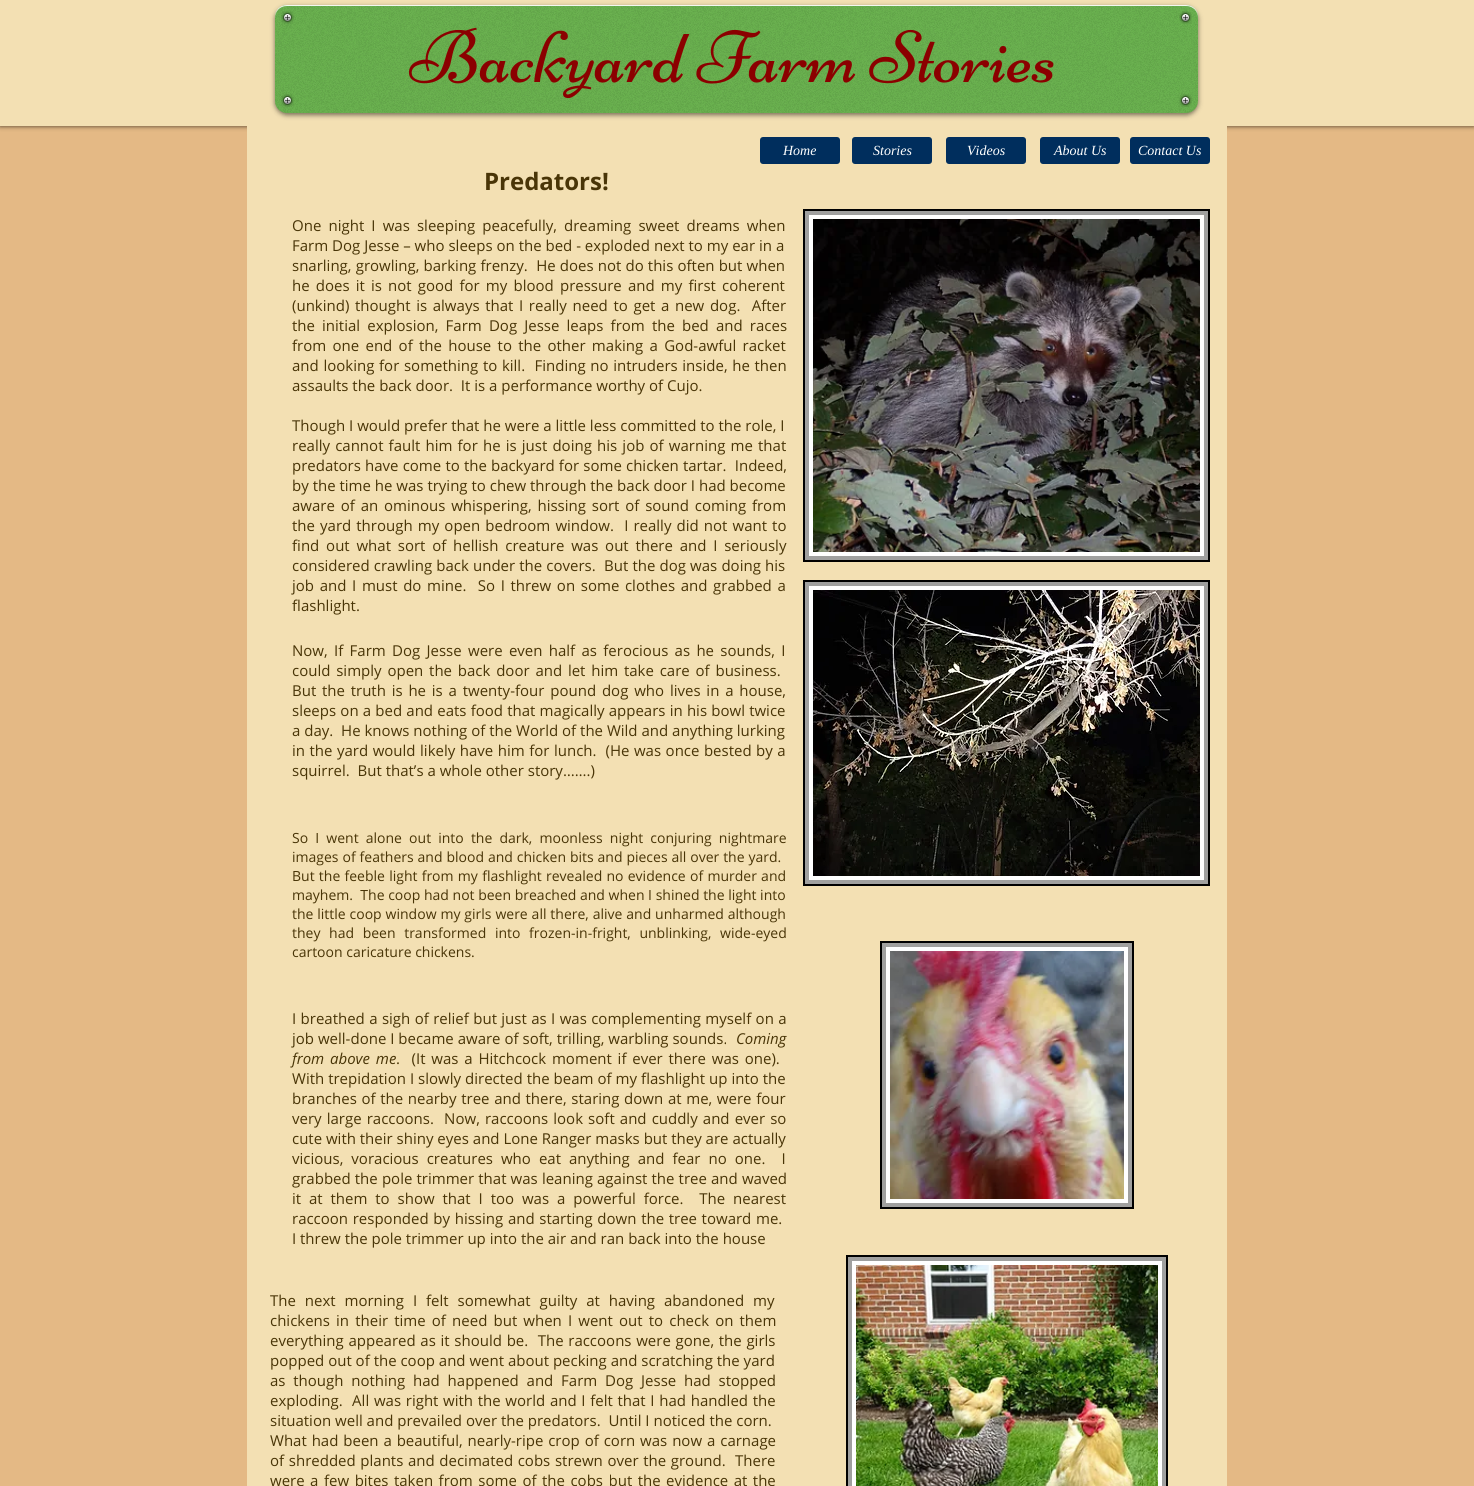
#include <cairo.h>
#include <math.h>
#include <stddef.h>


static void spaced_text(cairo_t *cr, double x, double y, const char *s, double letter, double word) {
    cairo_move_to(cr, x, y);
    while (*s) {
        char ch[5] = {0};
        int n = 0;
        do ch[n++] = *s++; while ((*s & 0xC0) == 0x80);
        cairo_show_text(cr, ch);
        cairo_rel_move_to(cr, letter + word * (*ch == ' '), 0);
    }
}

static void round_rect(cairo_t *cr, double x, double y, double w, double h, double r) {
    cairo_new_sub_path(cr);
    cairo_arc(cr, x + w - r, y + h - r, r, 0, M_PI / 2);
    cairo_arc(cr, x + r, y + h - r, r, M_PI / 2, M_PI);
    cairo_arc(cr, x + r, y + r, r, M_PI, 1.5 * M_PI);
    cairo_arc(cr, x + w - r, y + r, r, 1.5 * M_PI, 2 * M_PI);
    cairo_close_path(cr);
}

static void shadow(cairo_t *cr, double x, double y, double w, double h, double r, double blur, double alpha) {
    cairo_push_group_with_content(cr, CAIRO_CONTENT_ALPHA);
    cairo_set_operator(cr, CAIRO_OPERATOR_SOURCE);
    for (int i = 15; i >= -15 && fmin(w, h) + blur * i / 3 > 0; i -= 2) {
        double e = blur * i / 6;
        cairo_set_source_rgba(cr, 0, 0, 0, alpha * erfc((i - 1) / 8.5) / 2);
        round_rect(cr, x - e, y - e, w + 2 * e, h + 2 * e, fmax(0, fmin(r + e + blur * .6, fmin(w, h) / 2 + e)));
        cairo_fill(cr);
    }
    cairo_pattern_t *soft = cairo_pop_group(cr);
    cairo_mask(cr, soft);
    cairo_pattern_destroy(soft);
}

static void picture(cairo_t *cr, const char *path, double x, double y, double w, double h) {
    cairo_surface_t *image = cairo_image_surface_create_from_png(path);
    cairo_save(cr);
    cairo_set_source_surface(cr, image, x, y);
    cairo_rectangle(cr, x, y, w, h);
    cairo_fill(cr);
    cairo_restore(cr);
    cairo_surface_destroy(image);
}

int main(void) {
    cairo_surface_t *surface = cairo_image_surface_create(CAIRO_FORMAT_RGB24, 1474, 1486);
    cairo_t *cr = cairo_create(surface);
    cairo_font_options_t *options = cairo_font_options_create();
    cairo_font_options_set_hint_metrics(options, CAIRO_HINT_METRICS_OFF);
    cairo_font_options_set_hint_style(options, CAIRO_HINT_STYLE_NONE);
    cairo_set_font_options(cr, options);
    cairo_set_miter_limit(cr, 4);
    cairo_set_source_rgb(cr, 0.894, 0.725, 0.522);
    cairo_paint(cr);
    cairo_set_source_rgb(cr, 0, 0, 0);
    shadow(cr, 0, 0, 1474, 126, 0, 2.5, 0.7);
    cairo_set_source_rgb(cr, 0.953, 0.878, 0.702);
    cairo_rectangle(cr, 0, 0, 1474, 126);
    cairo_fill(cr);
    cairo_set_source_rgb(cr, 0, 0, 0);
    shadow(cr, 275, 7, 923, 108, 12, 2.5, 0.53);
    cairo_set_source_rgb(cr, 0.408, 0.69, 0.302);
    round_rect(cr, 275, 5, 923, 108, 12);
    cairo_fill(cr);
    picture(cr, "img1.png", 275, 5, 923, 108);
    cairo_set_source_rgba(cr, 1, 1, 1, 0.92);
    cairo_new_path(cr);
    cairo_move_to(cr, 287, 6);
    cairo_line_to(cr, 1186, 6);
    cairo_curve_to(cr, 1193, 6, 1198, 11, 1198, 18);
    cairo_line_to(cr, 1198, 17);
    cairo_curve_to(cr, 1198, 10, 1193, 5, 1186, 5);
    cairo_line_to(cr, 287, 5);
    cairo_curve_to(cr, 280, 5, 275, 10, 275, 17);
    cairo_line_to(cr, 275, 18);
    cairo_curve_to(cr, 275, 11, 280, 6, 287, 6);
    cairo_close_path(cr);
    cairo_fill(cr);
    picture(cr, "img2.png", 281, 11, 13, 13);
    picture(cr, "img3.png", 1179, 11, 13, 13);
    picture(cr, "img4.png", 408, 27, 646, 72);
    picture(cr, "img5.png", 281, 94, 13, 13);
    picture(cr, "img6.png", 1179, 94, 13, 13);
    cairo_set_source_rgb(cr, 0.953, 0.878, 0.702);
    cairo_rectangle(cr, 247, 126, 980, 1360);
    cairo_fill(cr);
    cairo_set_source_rgb(cr, 0, 0.18, 0.365);
    round_rect(cr, 760, 137, 80, 27, 3);
    cairo_fill(cr);
    cairo_select_font_face(cr, "Liberation Serif", CAIRO_FONT_SLANT_ITALIC, CAIRO_FONT_WEIGHT_NORMAL);
    cairo_set_font_size(cr, 14);
    cairo_set_source_rgb(cr, 1, 1, 1);
    cairo_move_to(cr, 783, 155);
    cairo_show_text(cr, "Home");
    cairo_set_source_rgb(cr, 0, 0.18, 0.365);
    round_rect(cr, 852, 137, 80, 27, 3);
    cairo_fill(cr);
    cairo_set_source_rgb(cr, 1, 1, 1);
    cairo_move_to(cr, 873, 155);
    cairo_show_text(cr, "Stories");
    cairo_set_source_rgb(cr, 0, 0.18, 0.365);
    round_rect(cr, 946, 137, 80, 27, 3);
    cairo_fill(cr);
    cairo_set_source_rgb(cr, 1, 1, 1);
    cairo_move_to(cr, 967, 155);
    cairo_show_text(cr, "Videos");
    cairo_set_source_rgb(cr, 0, 0.18, 0.365);
    round_rect(cr, 1040, 137, 80, 27, 3);
    cairo_fill(cr);
    cairo_set_source_rgb(cr, 1, 1, 1);
    cairo_move_to(cr, 1054, 155);
    cairo_show_text(cr, "About Us");
    cairo_set_source_rgb(cr, 0, 0.18, 0.365);
    round_rect(cr, 1130, 137, 80, 27, 3);
    cairo_fill(cr);
    cairo_set_source_rgb(cr, 1, 1, 1);
    cairo_move_to(cr, 1138, 155);
    cairo_show_text(cr, "Contact Us");
    cairo_select_font_face(cr, "Open Sans", CAIRO_FONT_SLANT_NORMAL, CAIRO_FONT_WEIGHT_BOLD);
    cairo_set_font_size(cr, 24);
    cairo_set_source_rgb(cr, 0.286, 0.208, 0.031);
    cairo_move_to(cr, 484, 190);
    cairo_show_text(cr, "Predators!");
    cairo_select_font_face(cr, "Open Sans", CAIRO_FONT_SLANT_NORMAL, CAIRO_FONT_WEIGHT_NORMAL);
    cairo_set_font_size(cr, 15);
    spaced_text(cr, 292, 231, "One night I was sleeping peacefully, dreaming sweet dreams when", 0, 3.25);
    cairo_move_to(cr, 292, 251);
    cairo_show_text(cr, "Farm Dog Jesse – who sleeps on the bed - exploded next to my ear in a");
    spaced_text(cr, 292, 271, "snarling, growling, barking frenzy.  He does not do this often but when", 0, 0.25);
    spaced_text(cr, 292, 291, "he does it is not good for my blood pressure and my first coherent", 0, 2.25);
    spaced_text(cr, 292, 311, "(unkind) thought is always that I really need to get a new dog.  After", 0, 1.75);
    spaced_text(cr, 292, 331, "the initial explosion, Farm Dog Jesse leaps from the bed and races", 0, 3.25);
    spaced_text(cr, 292, 351, "from one end of the house to the other making a God-awful racket", 0, 2.4);
    spaced_text(cr, 292, 371, "and looking for something to kill.  Finding no intruders inside, he then", 0, 0.75);
    cairo_move_to(cr, 292, 391);
    cairo_show_text(cr, "assaults the back door.  It is a performance worthy of Cujo.");
    cairo_move_to(cr, 292, 431);
    cairo_show_text(cr, "Though I would prefer that he were a little less committed to the role, I");
    spaced_text(cr, 292, 451, "really cannot fault him for he is just doing his job of warning me that", 0, 1.25);
    spaced_text(cr, 292, 471, "predators have come to the backyard for some chicken tartar.  Indeed,", 0, 0.25);
    cairo_move_to(cr, 292, 491);
    cairo_show_text(cr, "by the time he was trying to chew through the back door I had become");
    spaced_text(cr, 292, 511, "aware of an ominous whispering, hissing sort of sound coming from", 0, 1.9);
    spaced_text(cr, 292, 531, "the yard through my open bedroom window.  I really did not want to", 0, 1.2);
    spaced_text(cr, 292, 551, "find out what sort of hellish creature was out there and I seriously", 0, 2.9);
    spaced_text(cr, 292, 571, "considered crawling back under the covers.  But the dog was doing his", 0, 0.25);
    spaced_text(cr, 292, 591, "job and I must do mine.  So I threw on some clothes and grabbed a", 0, 1.75);
    cairo_move_to(cr, 292, 611);
    cairo_show_text(cr, "flashlight.");
    cairo_set_source_rgb(cr, 1, 1, 1);
    cairo_rectangle(cr, 809, 215, 395, 341);
    cairo_fill(cr);
    cairo_rectangle(cr, 804, 210, 405, 351);
    cairo_set_source_rgb(cr, 0, 0, 0);
    cairo_stroke(cr);
    picture(cr, "img7.png", 813, 219, 387, 333);
    cairo_rectangle(cr, 807, 213, 399, 345);
    cairo_set_source_rgb(cr, 0.627, 0.627, 0.624);
    cairo_set_line_width(cr, 4);
    cairo_stroke(cr);
    cairo_set_source_rgb(cr, 0.286, 0.208, 0.031);
    spaced_text(cr, 292, 656, "Now, If Farm Dog Jesse were even half as ferocious as he sounds, I", 0, 2.4);
    spaced_text(cr, 292, 676, "could simply open the back door and let him take care of business.", 0, 1.9);
    spaced_text(cr, 292, 696, "But the truth is he is a twenty-four pound dog who lives in a house,", 0, 1.9);
    spaced_text(cr, 292, 716, "sleeps on a bed and eats food that magically appears in his bowl twice", 0, 0.3);
    cairo_move_to(cr, 292, 736);
    cairo_show_text(cr, "a day.  He knows nothing of the World of the Wild and anything lurking");
    spaced_text(cr, 292, 756, "in the yard would likely have him for lunch.  (He was once bested by a", 0, 0.6);
    cairo_move_to(cr, 292, 776);
    cairo_show_text(cr, "squirrel.  But that’s a whole other story…….)");
    cairo_set_source_rgb(cr, 1, 1, 1);
    cairo_rectangle(cr, 809, 586, 395, 294);
    cairo_fill(cr);
    cairo_rectangle(cr, 804, 581, 405, 304);
    cairo_set_source_rgb(cr, 0, 0, 0);
    cairo_set_line_width(cr, 2);
    cairo_stroke(cr);
    picture(cr, "img8.png", 813, 590, 387, 286);
    cairo_rectangle(cr, 807, 584, 399, 298);
    cairo_set_source_rgb(cr, 0.627, 0.627, 0.624);
    cairo_set_line_width(cr, 4);
    cairo_stroke(cr);
    cairo_set_font_size(cr, 14);
    cairo_set_source_rgb(cr, 0.286, 0.208, 0.031);
    spaced_text(cr, 292, 843, "So I went alone out into the dark, moonless night conjuring nightmare", 0, 3.5);
    spaced_text(cr, 292, 862, "images of feathers and blood and chicken bits and pieces all over the yard.", 0, 0.25);
    spaced_text(cr, 292, 881, "But the feeble light from my flashlight revealed no evidence of murder and", 0, 0.6);
    cairo_move_to(cr, 292, 900);
    cairo_show_text(cr, "mayhem.  The coop had not been breached and when I shined the light into");
    spaced_text(cr, 292, 919, "the little coop window my girls were all there, alive and unharmed although", 0, 0.25);
    spaced_text(cr, 292, 938, "they had been transformed into frozen-in-fright, unblinking, wide-eyed", 0, 5);
    cairo_move_to(cr, 292, 957);
    cairo_show_text(cr, "cartoon caricature chickens.");
    cairo_set_font_size(cr, 15);
    spaced_text(cr, 292, 1024, "I breathed a sigh of relief but just as I was complementing myself on a", 0, 0.5);
    cairo_move_to(cr, 292, 1044);
    cairo_show_text(cr, "job well-done I became aware of soft, trilling, warbling sounds.");
    cairo_select_font_face(cr, "Open Sans", CAIRO_FONT_SLANT_ITALIC, CAIRO_FONT_WEIGHT_NORMAL);
    cairo_move_to(cr, 736, 1044);
    cairo_show_text(cr, "Coming");
    spaced_text(cr, 292, 1064, "from above me", 0, 2);
    cairo_select_font_face(cr, "Open Sans", CAIRO_FONT_SLANT_NORMAL, CAIRO_FONT_WEIGHT_NORMAL);
    spaced_text(cr, 396, 1064, ".  (It was a Hitchcock moment if ever there was one).", 0, 1.9);
    spaced_text(cr, 292, 1084, "With trepidation I slowly directed the beam of my flashlight up into the", 0, 0.1);
    spaced_text(cr, 292, 1104, "branches of the nearby tree and there, staring down at me, were four", 0, 0.75);
    spaced_text(cr, 292, 1124, "very large raccoons.  Now, raccoons look soft and cuddly and ever so", 0, 1.2);
    cairo_move_to(cr, 292, 1144);
    cairo_show_text(cr, "cute with their shiny eyes and Lone Ranger masks but they are actually");
    spaced_text(cr, 292, 1164, "vicious, voracious creatures who eat anything and fear no one.  I", 0, 4.1);
    spaced_text(cr, 292, 1184, "grabbed the pole trimmer that was leaning against the tree and waved", 0, 0.25);
    spaced_text(cr, 292, 1204, "it at them to show that I too was a powerful force.  The nearest", 0, 4);
    spaced_text(cr, 292, 1224, "raccoon responded by hissing and starting down the tree toward me.", 0, 0.75);
    cairo_move_to(cr, 292, 1244);
    cairo_show_text(cr, "I threw the pole trimmer up into the air and ran back into the house");
    cairo_set_source_rgb(cr, 1, 1, 1);
    cairo_rectangle(cr, 886, 947, 242, 256);
    cairo_fill(cr);
    cairo_rectangle(cr, 881, 942, 252, 266);
    cairo_set_source_rgb(cr, 0, 0, 0);
    cairo_set_line_width(cr, 2);
    cairo_stroke(cr);
    picture(cr, "img9.png", 890, 951, 234, 248);
    cairo_rectangle(cr, 884, 945, 246, 260);
    cairo_set_source_rgb(cr, 0.627, 0.627, 0.624);
    cairo_set_line_width(cr, 4);
    cairo_stroke(cr);
    cairo_set_source_rgb(cr, 0.286, 0.208, 0.031);
    spaced_text(cr, 270, 1306, "The next morning I felt somewhat guilty at having abandoned my", 0, 5);
    spaced_text(cr, 270, 1326, "chickens in their time of need but when I went out to check on them", 0, 2.25);
    spaced_text(cr, 270, 1346, "everything appeared as it should be.  The raccoons were gone, the girls", 0, 0.8);
    cairo_move_to(cr, 270, 1366);
    cairo_show_text(cr, "popped out of the coop and went about pecking and scratching the yard");
    spaced_text(cr, 270, 1386, "as though nothing had happened and Farm Dog Jesse had stopped", 0, 3.9);
    spaced_text(cr, 270, 1406, "exploding.  All was right with the world and I felt that I had handled the", 0, 0.8);
    cairo_move_to(cr, 270, 1426);
    cairo_show_text(cr, "situation well and prevailed over the predators.  Until I noticed the corn.");
    spaced_text(cr, 270, 1446, "What had been a beautiful, nearly-ripe crop of corn was now a carnage", 0, 1);
    spaced_text(cr, 270, 1466, "of shredded plants and decimated cobs strewn over the ground.  There", 0, 0.75);
    spaced_text(cr, 270, 1486, "were a few bites taken from some of the cobs but the evidence at the", 0, 1.6);
    cairo_set_source_rgb(cr, 1, 1, 1);
    cairo_rectangle(cr, 852, 1261, 310, 225);
    cairo_fill(cr);
    cairo_rectangle(cr, 847, 1256, 320, 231);
    cairo_set_source_rgb(cr, 0, 0, 0);
    cairo_set_line_width(cr, 2);
    cairo_stroke(cr);
    picture(cr, "img10.png", 856, 1265, 302, 221);
    cairo_rectangle(cr, 850, 1259, 314, 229);
    cairo_set_source_rgb(cr, 0.627, 0.627, 0.624);
    cairo_set_line_width(cr, 4);
    cairo_stroke(cr);
    cairo_surface_write_to_png(surface, "page.png");
    cairo_font_options_destroy(options);
    cairo_destroy(cr);
    cairo_surface_destroy(surface);
    return 0;
}
